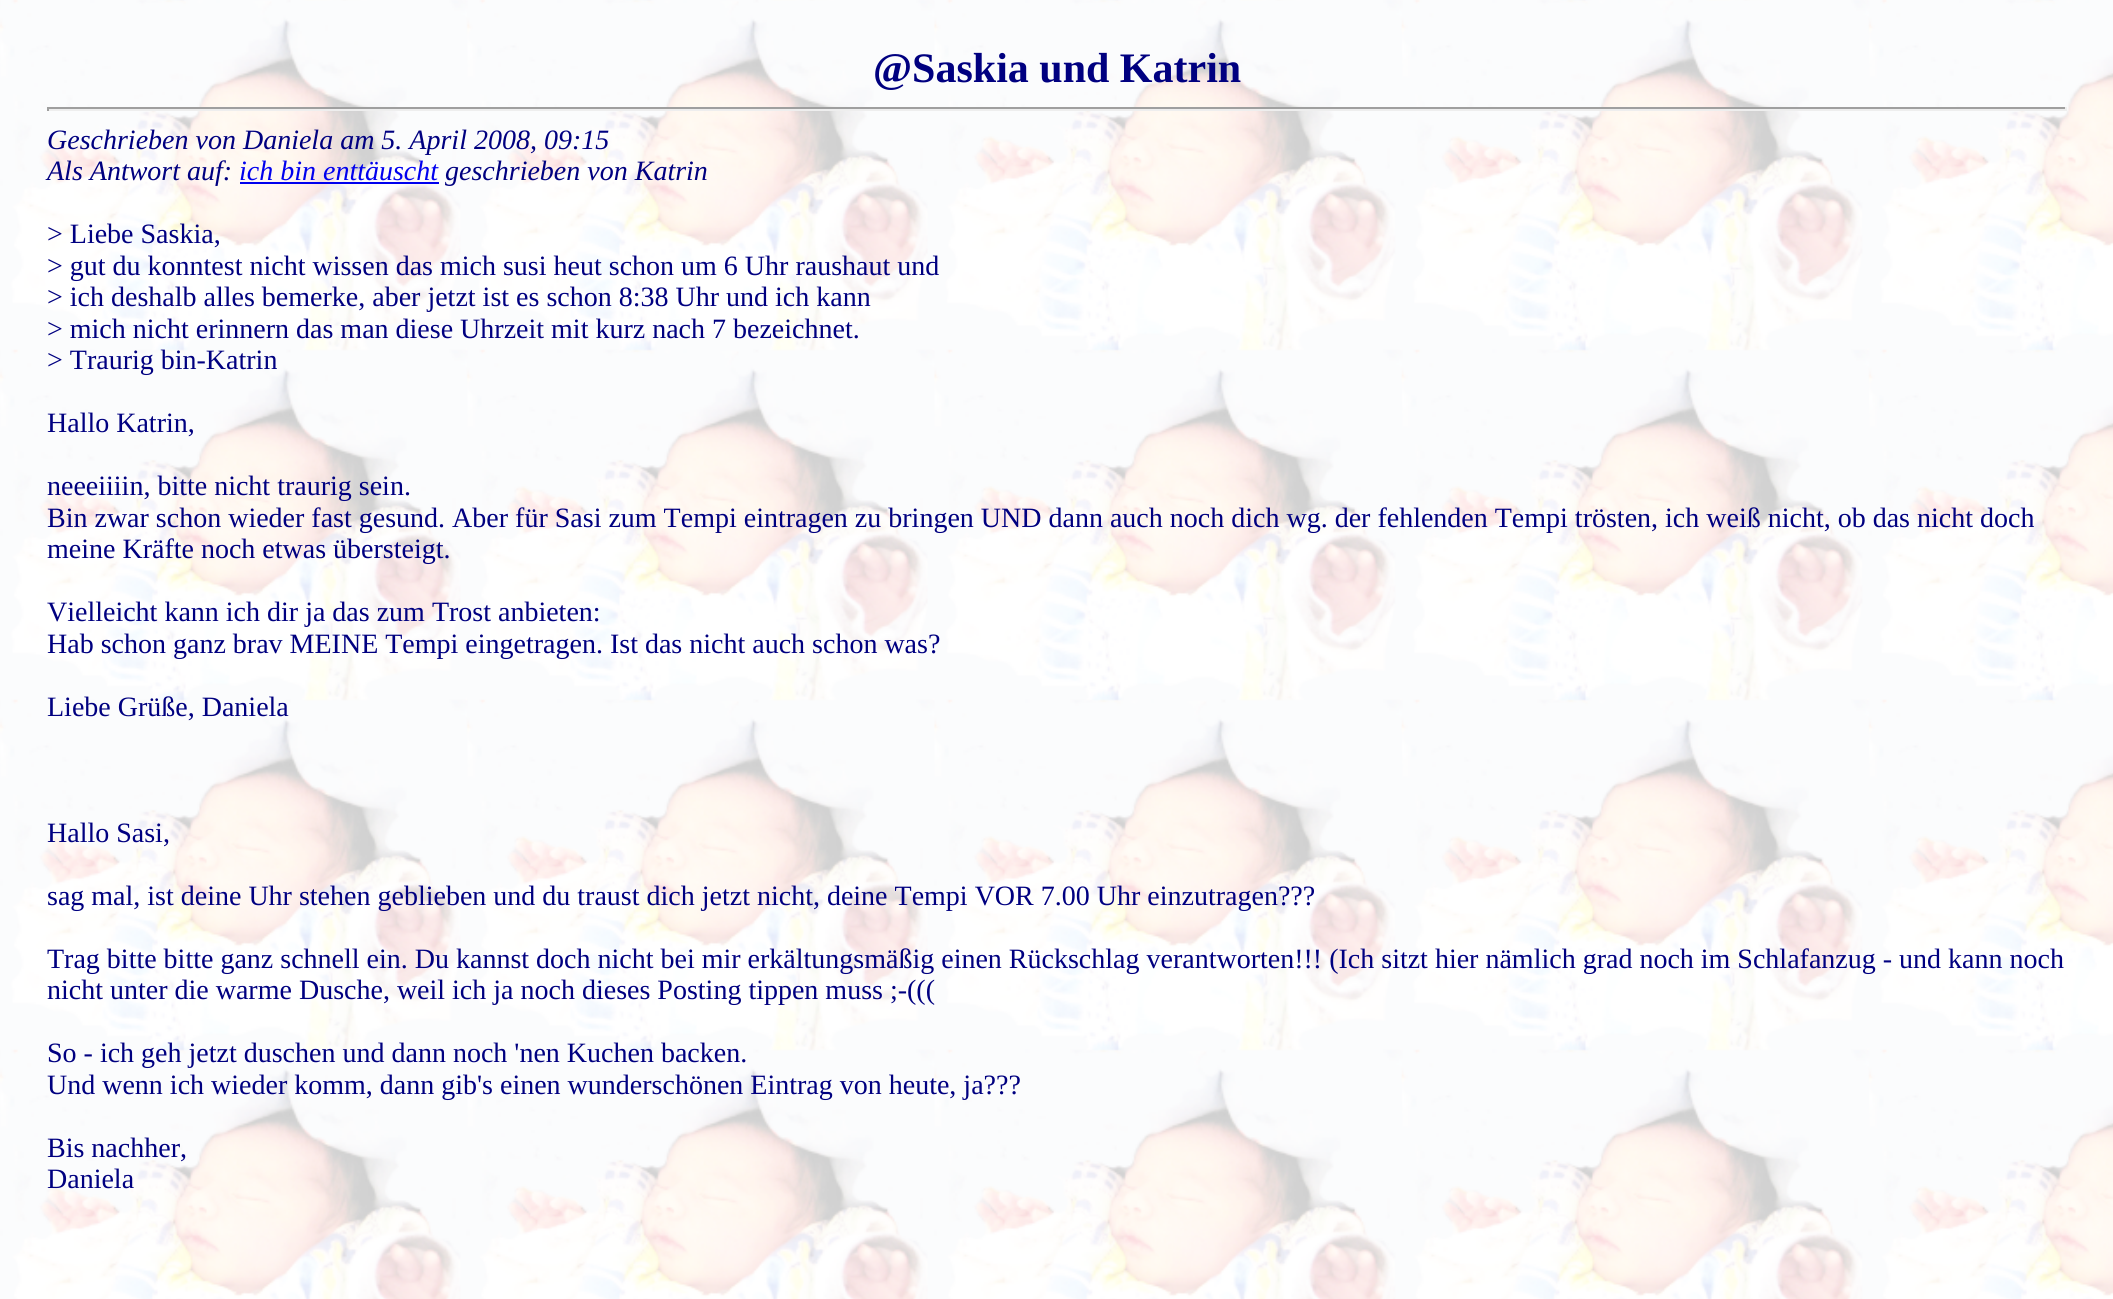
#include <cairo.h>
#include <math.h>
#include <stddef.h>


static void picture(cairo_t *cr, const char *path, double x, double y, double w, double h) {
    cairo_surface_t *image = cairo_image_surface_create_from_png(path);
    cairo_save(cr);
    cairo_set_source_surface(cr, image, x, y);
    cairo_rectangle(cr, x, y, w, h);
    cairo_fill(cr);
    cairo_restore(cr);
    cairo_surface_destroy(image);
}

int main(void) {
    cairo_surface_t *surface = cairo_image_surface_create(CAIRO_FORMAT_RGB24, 2113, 1299);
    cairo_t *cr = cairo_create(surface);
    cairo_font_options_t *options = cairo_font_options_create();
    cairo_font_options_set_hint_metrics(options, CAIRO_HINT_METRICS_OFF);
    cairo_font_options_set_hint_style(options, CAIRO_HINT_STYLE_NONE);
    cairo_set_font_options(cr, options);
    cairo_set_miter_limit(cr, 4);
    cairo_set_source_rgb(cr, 1, 1, 1);
    cairo_paint(cr);
    picture(cr, "img1.png", 0, 0, 2113, 1299);
    cairo_select_font_face(cr, "Liberation Serif", CAIRO_FONT_SLANT_NORMAL, CAIRO_FONT_WEIGHT_BOLD);
    cairo_set_font_size(cr, 42);
    cairo_set_source_rgb(cr, 0, 0, 0.502);
    cairo_move_to(cr, 873, 82);
    cairo_show_text(cr, "@Saskia und Katrin");
    cairo_set_source_rgb(cr, 0.624, 0.624, 0.624);
    cairo_rectangle(cr, 47, 107, 2020, 2);
    cairo_fill(cr);
    cairo_set_source_rgb(cr, 0.933, 0.933, 0.933);
    cairo_rectangle(cr, 2065, 107, 2, 4);
    cairo_fill(cr);
    cairo_rectangle(cr, 47, 109, 2020, 2);
    cairo_fill(cr);
    cairo_set_source_rgb(cr, 0.624, 0.624, 0.624);
    cairo_rectangle(cr, 47, 107, 2, 4);
    cairo_fill(cr);
    cairo_select_font_face(cr, "Liberation Serif", CAIRO_FONT_SLANT_ITALIC, CAIRO_FONT_WEIGHT_NORMAL);
    cairo_set_font_size(cr, 28);
    cairo_set_source_rgb(cr, 0, 0, 0.502);
    cairo_move_to(cr, 47, 149);
    cairo_show_text(cr, "Geschrieben von Daniela am 5. April 2008, 09:15");
    cairo_move_to(cr, 47, 180);
    cairo_show_text(cr, "Als Antwort auf:");
    cairo_set_source_rgb(cr, 0, 0, 0.933);
    cairo_move_to(cr, 239, 180);
    cairo_show_text(cr, "ich bin enttäuscht");
    cairo_rectangle(cr, 240, 182, 199, 2);
    cairo_fill(cr);
    cairo_set_source_rgb(cr, 0, 0, 0.502);
    cairo_move_to(cr, 445, 180);
    cairo_show_text(cr, "geschrieben von Katrin");
    cairo_select_font_face(cr, "Liberation Serif", CAIRO_FONT_SLANT_NORMAL, CAIRO_FONT_WEIGHT_NORMAL);
    cairo_move_to(cr, 47, 243);
    cairo_show_text(cr, "> Liebe Saskia,");
    cairo_move_to(cr, 47, 275);
    cairo_show_text(cr, "> gut du konntest nicht wissen das mich susi heut schon um 6 Uhr raushaut und");
    cairo_move_to(cr, 47, 306);
    cairo_show_text(cr, "> ich deshalb alles bemerke, aber jetzt ist es schon 8:38 Uhr und ich kann");
    cairo_move_to(cr, 47, 338);
    cairo_show_text(cr, "> mich nicht erinnern das man diese Uhrzeit mit kurz nach 7 bezeichnet.");
    cairo_move_to(cr, 47, 369);
    cairo_show_text(cr, "> Traurig bin-Katrin");
    cairo_move_to(cr, 47, 432);
    cairo_show_text(cr, "Hallo Katrin,");
    cairo_move_to(cr, 47, 495);
    cairo_show_text(cr, "neeeiiiin, bitte nicht traurig sein.");
    cairo_move_to(cr, 47, 527);
    cairo_show_text(cr, "Bin zwar schon wieder fast gesund. Aber für Sasi zum Tempi eintragen zu bringen UND dann auch noch dich wg. der fehlenden Tempi trösten, ich weiß nicht, ob das nicht doch");
    cairo_move_to(cr, 47, 558);
    cairo_show_text(cr, "meine Kräfte noch etwas übersteigt.");
    cairo_move_to(cr, 47, 621);
    cairo_show_text(cr, "Vielleicht kann ich dir ja das zum Trost anbieten:");
    cairo_move_to(cr, 47, 653);
    cairo_show_text(cr, "Hab schon ganz brav MEINE Tempi eingetragen. Ist das nicht auch schon was?");
    cairo_move_to(cr, 47, 716);
    cairo_show_text(cr, "Liebe Grüße, Daniela");
    cairo_move_to(cr, 47, 842);
    cairo_show_text(cr, "Hallo Sasi,");
    cairo_move_to(cr, 47, 905);
    cairo_show_text(cr, "sag mal, ist deine Uhr stehen geblieben und du traust dich jetzt nicht, deine Tempi VOR 7.00 Uhr einzutragen?\077?");
    cairo_move_to(cr, 47, 968);
    cairo_show_text(cr, "Trag bitte bitte ganz schnell ein. Du kannst doch nicht bei mir erkältungsmäßig einen Rückschlag verantworten!!! (Ich sitzt hier nämlich grad noch im Schlafanzug - und kann noch");
    cairo_move_to(cr, 47, 999);
    cairo_show_text(cr, "nicht unter die warme Dusche, weil ich ja noch dieses Posting tippen muss ;-(((");
    cairo_move_to(cr, 47, 1062);
    cairo_show_text(cr, "So - ich geh jetzt duschen und dann noch 'nen Kuchen backen.");
    cairo_move_to(cr, 47, 1094);
    cairo_show_text(cr, "Und wenn ich wieder komm, dann gib's einen wunderschönen Eintrag von heute, ja?\077?");
    cairo_move_to(cr, 47, 1157);
    cairo_show_text(cr, "Bis nachher,");
    cairo_move_to(cr, 47, 1188);
    cairo_show_text(cr, "Daniela");
    cairo_surface_write_to_png(surface, "page.png");
    cairo_font_options_destroy(options);
    cairo_destroy(cr);
    cairo_surface_destroy(surface);
    return 0;
}
